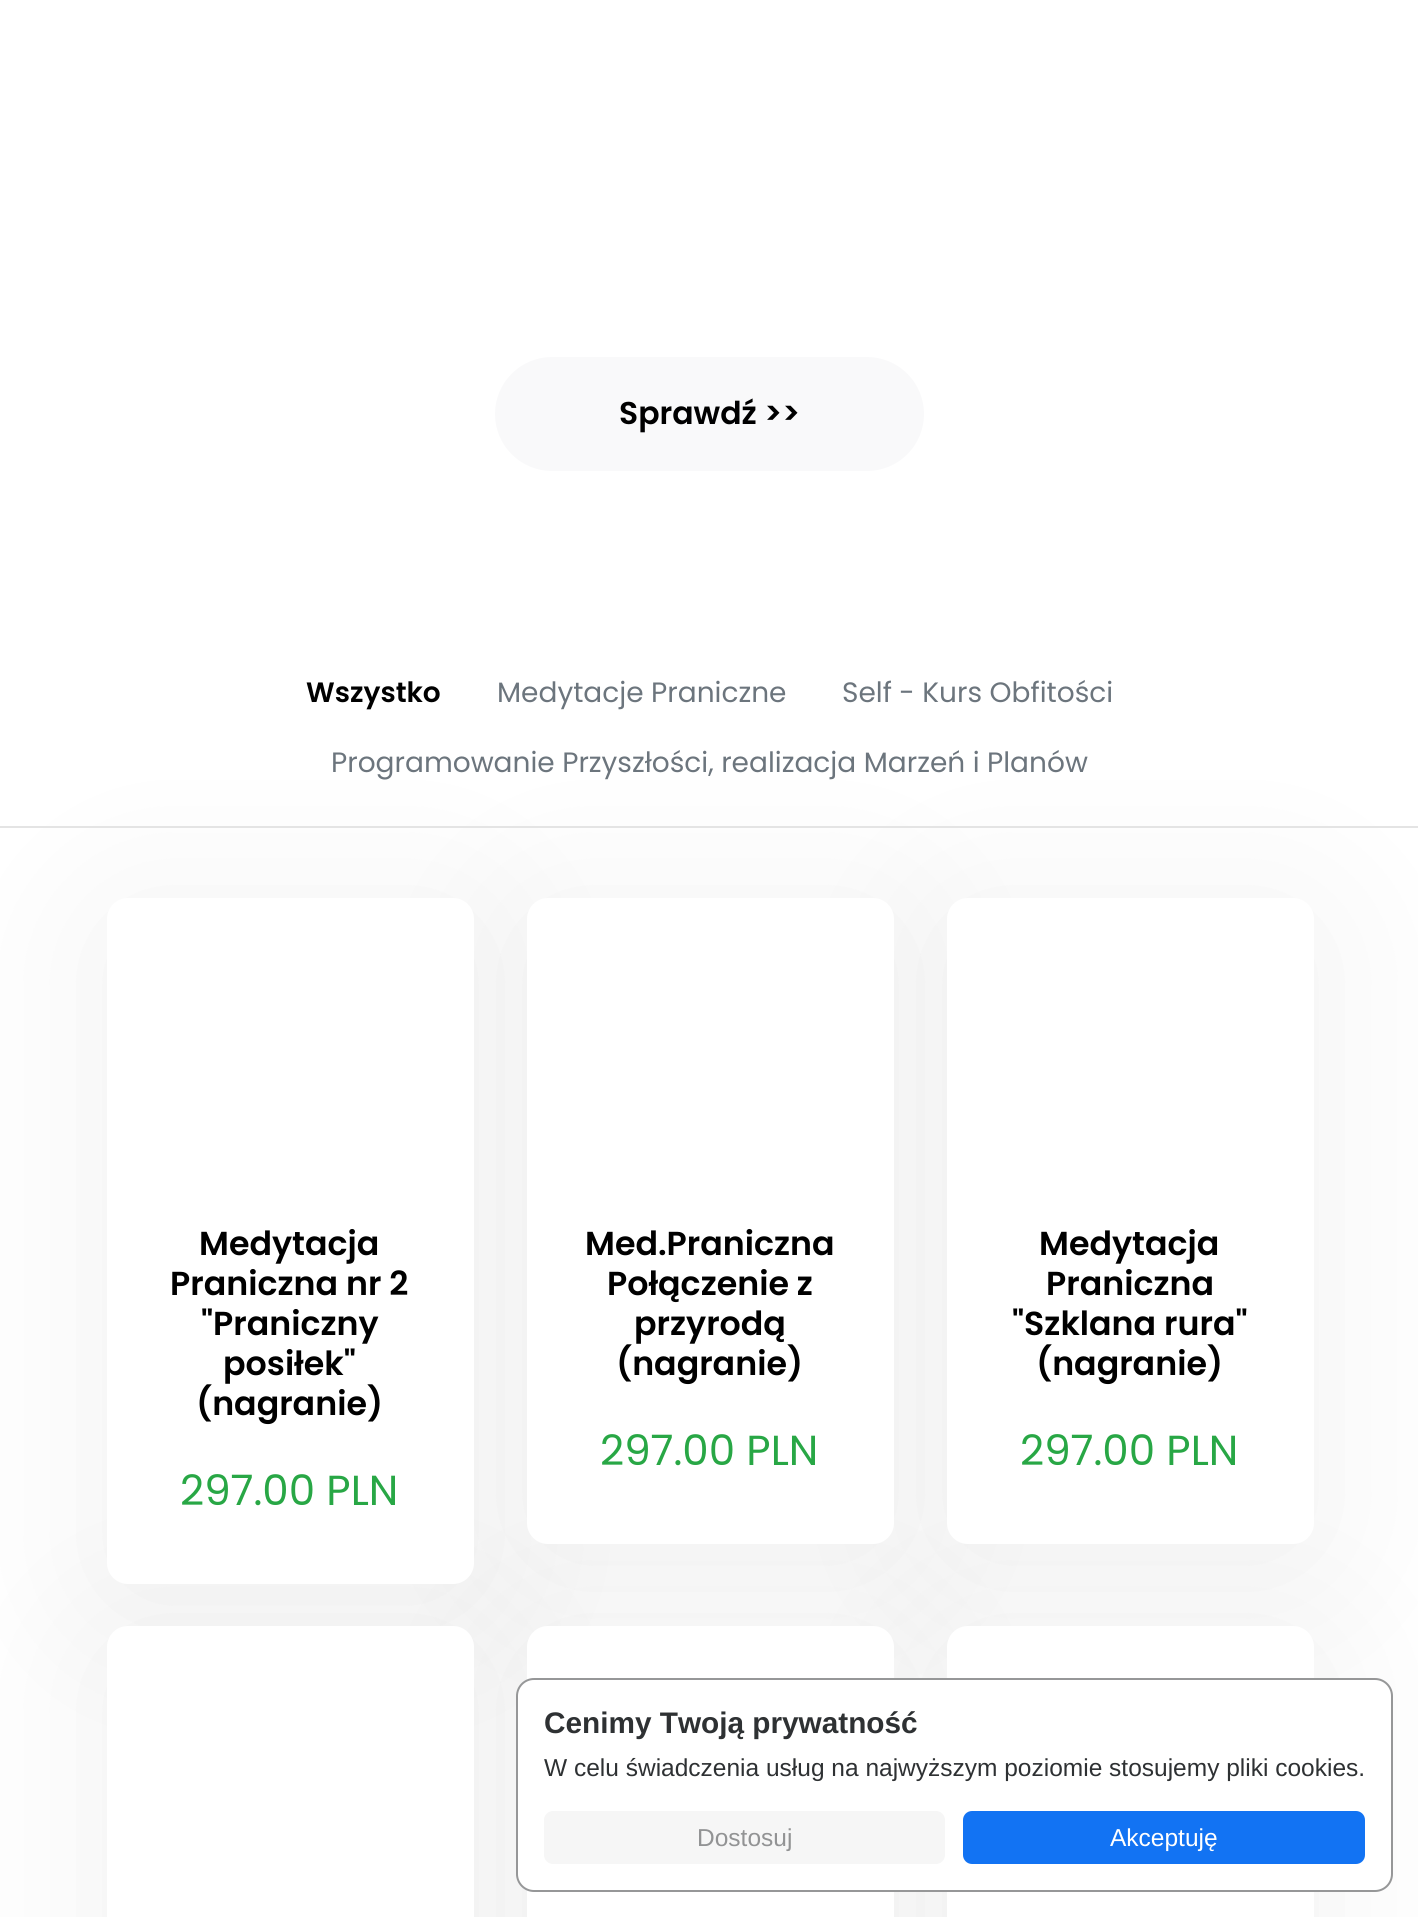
#include <cairo.h>
#include <math.h>
#include <stddef.h>


static void round_rect(cairo_t *cr, double x, double y, double w, double h, double r) {
    cairo_new_sub_path(cr);
    cairo_arc(cr, x + w - r, y + h - r, r, 0, M_PI / 2);
    cairo_arc(cr, x + r, y + h - r, r, M_PI / 2, M_PI);
    cairo_arc(cr, x + r, y + r, r, M_PI, 1.5 * M_PI);
    cairo_arc(cr, x + w - r, y + r, r, 1.5 * M_PI, 2 * M_PI);
    cairo_close_path(cr);
}

static void shadow(cairo_t *cr, double x, double y, double w, double h, double r, double blur, double alpha) {
    cairo_push_group_with_content(cr, CAIRO_CONTENT_ALPHA);
    cairo_set_operator(cr, CAIRO_OPERATOR_SOURCE);
    for (int i = 15; i >= -15 && fmin(w, h) + blur * i / 3 > 0; i -= 2) {
        double e = blur * i / 6;
        cairo_set_source_rgba(cr, 0, 0, 0, alpha * erfc((i - 1) / 8.5) / 2);
        round_rect(cr, x - e, y - e, w + 2 * e, h + 2 * e, fmax(0, fmin(r + e + blur * .6, fmin(w, h) / 2 + e)));
        cairo_fill(cr);
    }
    cairo_pattern_t *soft = cairo_pop_group(cr);
    cairo_mask(cr, soft);
    cairo_pattern_destroy(soft);
}

int main(void) {
    cairo_surface_t *surface = cairo_image_surface_create(CAIRO_FORMAT_RGB24, 1418, 1917);
    cairo_t *cr = cairo_create(surface);
    cairo_font_options_t *options = cairo_font_options_create();
    cairo_font_options_set_hint_metrics(options, CAIRO_HINT_METRICS_OFF);
    cairo_font_options_set_hint_style(options, CAIRO_HINT_STYLE_NONE);
    cairo_set_font_options(cr, options);
    cairo_set_miter_limit(cr, 4);
    cairo_set_source_rgb(cr, 1, 1, 1);
    cairo_paint(cr);
    cairo_set_source_rgb(cr, 0.973, 0.976, 0.98);
    round_rect(cr, 495, 357, 429, 114, 57);
    cairo_fill(cr);
    cairo_select_font_face(cr, "Poppins SemiBold", CAIRO_FONT_SLANT_NORMAL, CAIRO_FONT_WEIGHT_NORMAL);
    cairo_set_font_size(cr, 31.5);
    cairo_set_source_rgb(cr, 0, 0, 0);
    cairo_move_to(cr, 619, 424);
    cairo_show_text(cr, "Sprawdź >>");
    cairo_set_source_rgb(cr, 0, 0, 0);
    shadow(cr, 89, 898, 403, 721, 39, 79, 0.05);
    shadow(cr, 509, 898, 403, 681, 39, 79, 0.05);
    cairo_set_font_size(cr, 28);
    cairo_set_source_rgb(cr, 0, 0, 0);
    cairo_move_to(cr, 306, 702);
    cairo_show_text(cr, "Wszystko");
    cairo_set_source_rgb(cr, 0, 0, 0);
    shadow(cr, 929, 898, 403, 681, 39, 79, 0.05);
    cairo_select_font_face(cr, "Poppins", CAIRO_FONT_SLANT_NORMAL, CAIRO_FONT_WEIGHT_NORMAL);
    cairo_set_source_rgb(cr, 0.424, 0.459, 0.49);
    cairo_move_to(cr, 497, 702);
    cairo_show_text(cr, "Medytacje Praniczne");
    cairo_move_to(cr, 842, 702);
    cairo_show_text(cr, "Self - Kurs Obfitości");
    cairo_move_to(cr, 331, 772);
    cairo_show_text(cr, "Programowanie Przyszłości, realizacja Marzeń i Planów");
    cairo_set_source_rgb(cr, 0.894, 0.894, 0.894);
    cairo_rectangle(cr, 0, 826, 1418, 2);
    cairo_fill(cr);
    cairo_set_source_rgb(cr, 0, 0, 0);
    shadow(cr, 89, 1626, 403, 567, 39, 79, 0.05);
    shadow(cr, 509, 1626, 403, 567, 39, 79, 0.05);
    cairo_set_source_rgb(cr, 1, 1, 1);
    round_rect(cr, 107, 898, 367, 686, 21);
    cairo_fill(cr);
    cairo_select_font_face(cr, "Poppins SemiBold", CAIRO_FONT_SLANT_NORMAL, CAIRO_FONT_WEIGHT_NORMAL);
    cairo_set_font_size(cr, 33.25);
    cairo_set_source_rgb(cr, 0, 0, 0);
    cairo_move_to(cr, 199, 1255);
    cairo_show_text(cr, "Medytacja");
    cairo_move_to(cr, 170, 1295);
    cairo_show_text(cr, "Praniczna nr 2");
    cairo_move_to(cr, 201, 1335);
    cairo_show_text(cr, "\"Praniczny");
    cairo_move_to(cr, 223, 1375);
    cairo_show_text(cr, "posiłek\"");
    cairo_move_to(cr, 196, 1415);
    cairo_show_text(cr, "(nagranie)");
    cairo_select_font_face(cr, "Poppins", CAIRO_FONT_SLANT_NORMAL, CAIRO_FONT_WEIGHT_NORMAL);
    cairo_set_font_size(cr, 42);
    cairo_set_source_rgb(cr, 0.157, 0.655, 0.271);
    cairo_move_to(cr, 180, 1505);
    cairo_show_text(cr, "297.00 PLN");
    cairo_set_source_rgb(cr, 0, 0, 0);
    shadow(cr, 929, 1626, 403, 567, 39, 79, 0.05);
    cairo_set_source_rgb(cr, 1, 1, 1);
    round_rect(cr, 527, 898, 367, 646, 21);
    cairo_fill(cr);
    cairo_select_font_face(cr, "Poppins SemiBold", CAIRO_FONT_SLANT_NORMAL, CAIRO_FONT_WEIGHT_NORMAL);
    cairo_set_font_size(cr, 33.25);
    cairo_set_source_rgb(cr, 0, 0, 0);
    cairo_move_to(cr, 585, 1255);
    cairo_show_text(cr, "Med.Praniczna");
    cairo_move_to(cr, 607, 1295);
    cairo_show_text(cr, "Połączenie z");
    cairo_move_to(cr, 634, 1335);
    cairo_show_text(cr, "przyrodą");
    cairo_move_to(cr, 616, 1375);
    cairo_show_text(cr, "(nagranie)");
    cairo_select_font_face(cr, "Poppins", CAIRO_FONT_SLANT_NORMAL, CAIRO_FONT_WEIGHT_NORMAL);
    cairo_set_font_size(cr, 42);
    cairo_set_source_rgb(cr, 0.157, 0.655, 0.271);
    cairo_move_to(cr, 600, 1465);
    cairo_show_text(cr, "297.00 PLN");
    cairo_set_source_rgb(cr, 1, 1, 1);
    round_rect(cr, 947, 898, 367, 646, 21);
    cairo_fill(cr);
    cairo_select_font_face(cr, "Poppins SemiBold", CAIRO_FONT_SLANT_NORMAL, CAIRO_FONT_WEIGHT_NORMAL);
    cairo_set_font_size(cr, 33.25);
    cairo_set_source_rgb(cr, 0, 0, 0);
    cairo_move_to(cr, 1039, 1255);
    cairo_show_text(cr, "Medytacja");
    cairo_move_to(cr, 1046, 1295);
    cairo_show_text(cr, "Praniczna");
    cairo_move_to(cr, 1012, 1335);
    cairo_show_text(cr, "\"Szklana rura\"");
    cairo_move_to(cr, 1036, 1375);
    cairo_show_text(cr, "(nagranie)");
    cairo_select_font_face(cr, "Poppins", CAIRO_FONT_SLANT_NORMAL, CAIRO_FONT_WEIGHT_NORMAL);
    cairo_set_font_size(cr, 42);
    cairo_set_source_rgb(cr, 0.157, 0.655, 0.271);
    cairo_move_to(cr, 1020, 1465);
    cairo_show_text(cr, "297.00 PLN");
    cairo_set_source_rgb(cr, 1, 1, 1);
    round_rect(cr, 107, 1626, 367, 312, 21);
    cairo_fill(cr);
    round_rect(cr, 527, 1626, 367, 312, 21);
    cairo_fill(cr);
    round_rect(cr, 947, 1626, 367, 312, 21);
    cairo_fill(cr);
    round_rect(cr, 516, 1678, 877, 214, 18);
    cairo_fill(cr);
    round_rect(cr, 517, 1679, 875, 212, 17);
    cairo_set_source_rgba(cr, 0.18, 0.192, 0.2, 0.5);
    cairo_stroke(cr);
    cairo_select_font_face(cr, "Liberation Sans", CAIRO_FONT_SLANT_NORMAL, CAIRO_FONT_WEIGHT_BOLD);
    cairo_set_font_size(cr, 29.75);
    cairo_set_source_rgb(cr, 0.18, 0.192, 0.2);
    cairo_move_to(cr, 544, 1733);
    cairo_show_text(cr, "Cenimy Twoją prywatność");
    cairo_select_font_face(cr, "Liberation Sans", CAIRO_FONT_SLANT_NORMAL, CAIRO_FONT_WEIGHT_NORMAL);
    cairo_set_font_size(cr, 24.5);
    cairo_move_to(cr, 544, 1776);
    cairo_show_text(cr, "W celu świadczenia usług na najwyższym poziomie stosujemy pliki cookies.");
    cairo_set_source_rgb(cr, 0.961, 0.961, 0.961);
    round_rect(cr, 544, 1811, 401, 53, 9);
    cairo_fill(cr);
    cairo_set_source_rgb(cr, 0.573, 0.576, 0.58);
    cairo_move_to(cr, 697, 1846);
    cairo_show_text(cr, "Dostosuj");
    cairo_set_source_rgb(cr, 0.071, 0.451, 0.953);
    round_rect(cr, 963, 1811, 402, 53, 9);
    cairo_fill(cr);
    cairo_set_source_rgb(cr, 1, 1, 1);
    cairo_move_to(cr, 1110, 1846);
    cairo_show_text(cr, "Akceptuję");
    cairo_surface_write_to_png(surface, "page.png");
    cairo_font_options_destroy(options);
    cairo_destroy(cr);
    cairo_surface_destroy(surface);
    return 0;
}
